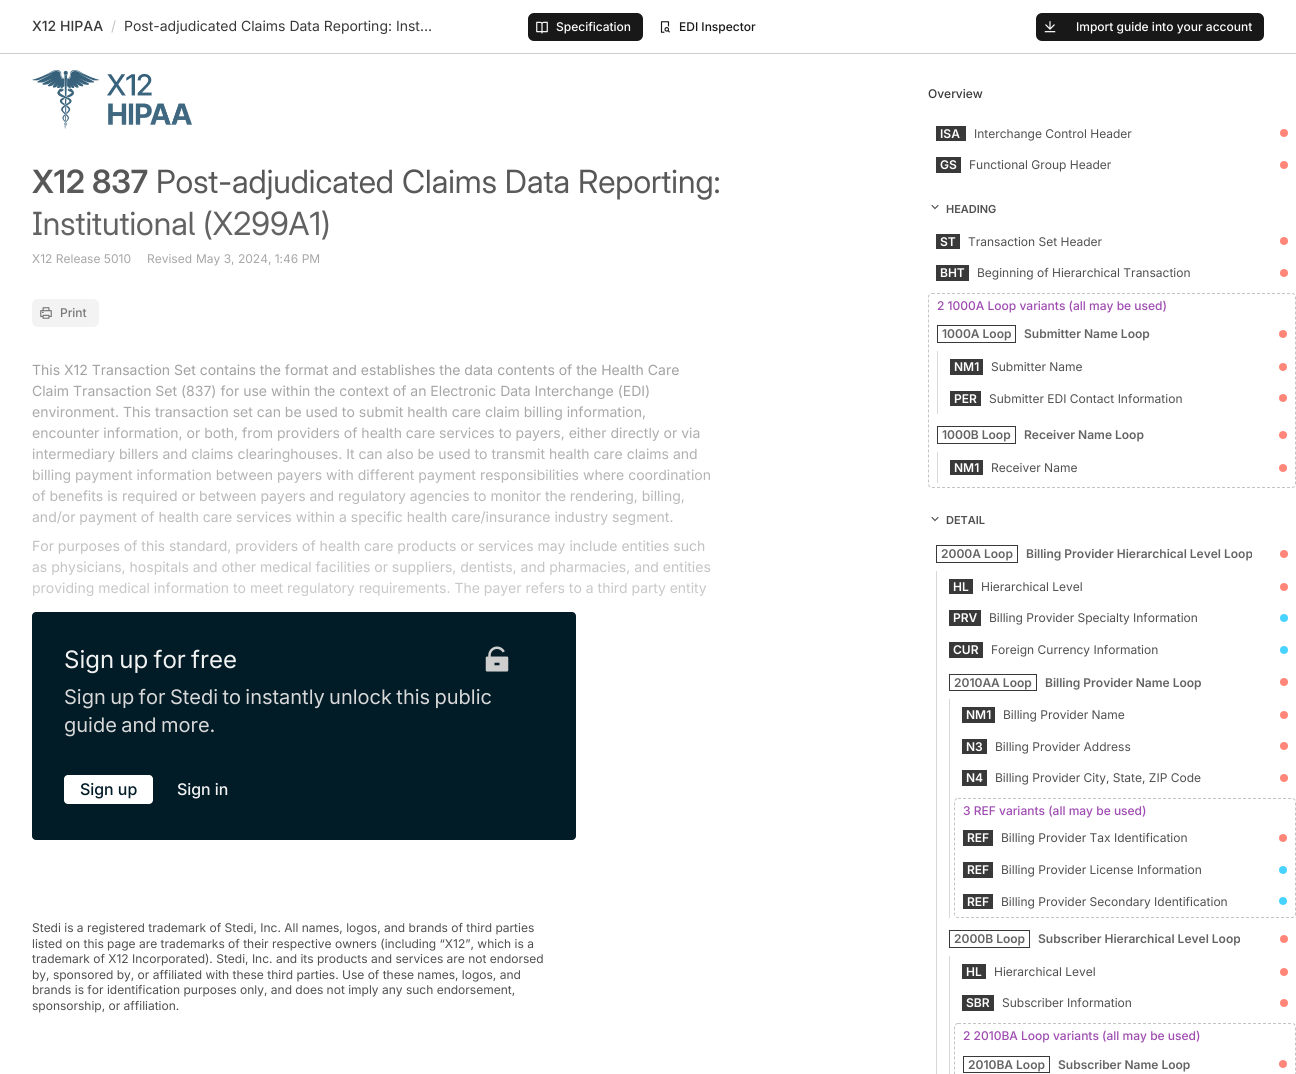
#include <cairo.h>
#include <math.h>
#include <stddef.h>


static void spaced_text(cairo_t *cr, double x, double y, const char *s, double letter, double word) {
    cairo_move_to(cr, x, y);
    while (*s) {
        char ch[5] = {0};
        int n = 0;
        do ch[n++] = *s++; while ((*s & 0xC0) == 0x80);
        cairo_show_text(cr, ch);
        cairo_rel_move_to(cr, letter + word * (*ch == ' '), 0);
    }
}

static void round_rect(cairo_t *cr, double x, double y, double w, double h, double r) {
    cairo_new_sub_path(cr);
    cairo_arc(cr, x + w - r, y + h - r, r, 0, M_PI / 2);
    cairo_arc(cr, x + r, y + h - r, r, M_PI / 2, M_PI);
    cairo_arc(cr, x + r, y + r, r, M_PI, 1.5 * M_PI);
    cairo_arc(cr, x + w - r, y + r, r, 1.5 * M_PI, 2 * M_PI);
    cairo_close_path(cr);
}

static void picture(cairo_t *cr, const char *path, double x, double y, double w, double h) {
    cairo_surface_t *image = cairo_image_surface_create_from_png(path);
    cairo_save(cr);
    cairo_set_source_surface(cr, image, x, y);
    cairo_rectangle(cr, x, y, w, h);
    cairo_fill(cr);
    cairo_restore(cr);
    cairo_surface_destroy(image);
}

int main(void) {
    cairo_surface_t *surface = cairo_image_surface_create(CAIRO_FORMAT_RGB24, 1296, 1074);
    cairo_t *cr = cairo_create(surface);
    cairo_font_options_t *options = cairo_font_options_create();
    cairo_font_options_set_hint_metrics(options, CAIRO_HINT_METRICS_OFF);
    cairo_font_options_set_hint_style(options, CAIRO_HINT_STYLE_NONE);
    cairo_set_font_options(cr, options);
    cairo_set_miter_limit(cr, 4);
    cairo_pattern_t *gradient;
    cairo_set_source_rgb(cr, 1, 1, 1);
    cairo_paint(cr);
    cairo_set_source_rgb(cr, 0.808, 0.808, 0.808);
    cairo_rectangle(cr, 0, 53, 1296, 1);
    cairo_fill(cr);
    cairo_select_font_face(cr, "Inter Medium", CAIRO_FONT_SLANT_NORMAL, CAIRO_FONT_WEIGHT_NORMAL);
    cairo_set_font_size(cr, 14);
    cairo_set_source_rgb(cr, 0.224, 0.224, 0.224);
    cairo_move_to(cr, 32, 31);
    cairo_show_text(cr, "X12 HIPAA");
    cairo_select_font_face(cr, "Inter", CAIRO_FONT_SLANT_NORMAL, CAIRO_FONT_WEIGHT_NORMAL);
    cairo_set_source_rgb(cr, 0.769, 0.769, 0.769);
    cairo_move_to(cr, 111, 31);
    cairo_show_text(cr, "/");
    cairo_set_source_rgb(cr, 0.224, 0.224, 0.224);
    cairo_move_to(cr, 124, 31);
    cairo_show_text(cr, "Post-adjudicated Claims Data Reporting: Inst…");
    cairo_set_source_rgb(cr, 0.094, 0.094, 0.094);
    round_rect(cr, 528, 13, 115, 28, 6);
    cairo_fill(cr);
    picture(cr, "img1.png", 536, 21, 12, 13);
    cairo_select_font_face(cr, "Inter Medium", CAIRO_FONT_SLANT_NORMAL, CAIRO_FONT_WEIGHT_NORMAL);
    cairo_set_font_size(cr, 12);
    cairo_set_source_rgb(cr, 1, 1, 1);
    cairo_move_to(cr, 556, 31);
    cairo_show_text(cr, "Specification");
    picture(cr, "img2.png", 660, 21, 10, 12);
    cairo_set_source_rgb(cr, 0.094, 0.094, 0.094);
    cairo_move_to(cr, 679, 31);
    cairo_show_text(cr, "EDI Inspector");
    round_rect(cr, 1036, 13, 228, 28, 6);
    cairo_fill(cr);
    picture(cr, "img3.png", 1044, 21, 12, 12);
    cairo_set_source_rgb(cr, 1, 1, 1);
    cairo_move_to(cr, 1076, 31);
    cairo_show_text(cr, "Import guide into your account");
    picture(cr, "img4.png", 32, 70, 160, 59);
    cairo_select_font_face(cr, "Inter SemiBold", CAIRO_FONT_SLANT_NORMAL, CAIRO_FONT_WEIGHT_NORMAL);
    cairo_set_font_size(cr, 32);
    cairo_set_source_rgb(cr, 0.094, 0.094, 0.094);
    cairo_move_to(cr, 32, 193);
    cairo_show_text(cr, "X12 837");
    cairo_select_font_face(cr, "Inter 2", CAIRO_FONT_SLANT_NORMAL, CAIRO_FONT_WEIGHT_NORMAL);
    cairo_move_to(cr, 156, 193);
    cairo_show_text(cr, "Post-adjudicated Claims Data Reporting:");
    cairo_select_font_face(cr, "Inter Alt", CAIRO_FONT_SLANT_NORMAL, CAIRO_FONT_WEIGHT_NORMAL);
    cairo_move_to(cr, 32, 235);
    cairo_show_text(cr, "Institutional (X299A1)");
    cairo_select_font_face(cr, "Inter", CAIRO_FONT_SLANT_NORMAL, CAIRO_FONT_WEIGHT_NORMAL);
    cairo_set_font_size(cr, 12);
    cairo_set_source_rgb(cr, 0.463, 0.463, 0.463);
    cairo_move_to(cr, 32, 263);
    cairo_show_text(cr, "X12 Release 5010");
    cairo_move_to(cr, 147, 263);
    cairo_show_text(cr, "Revised");
    cairo_move_to(cr, 196, 263);
    cairo_show_text(cr, "May 3, 2024, 1:46 PM");
    cairo_set_source_rgb(cr, 0.918, 0.918, 0.918);
    round_rect(cr, 32, 299, 67, 28, 6);
    cairo_fill(cr);
    picture(cr, "img5.png", 40, 307, 12, 12);
    cairo_select_font_face(cr, "Inter Medium", CAIRO_FONT_SLANT_NORMAL, CAIRO_FONT_WEIGHT_NORMAL);
    cairo_set_source_rgb(cr, 0.094, 0.094, 0.094);
    cairo_move_to(cr, 60, 317);
    cairo_show_text(cr, "Print");
    cairo_select_font_face(cr, "Inter", CAIRO_FONT_SLANT_NORMAL, CAIRO_FONT_WEIGHT_NORMAL);
    cairo_set_font_size(cr, 14);
    cairo_set_source_rgb(cr, 0.314, 0.314, 0.314);
    cairo_move_to(cr, 32, 375);
    cairo_show_text(cr, "This X12 Transaction Set contains the format and establishes the data contents of the Health Care");
    cairo_move_to(cr, 32, 396);
    cairo_show_text(cr, "Claim Transaction Set (837) for use within the context of an Electronic Data Interchange (EDI)");
    cairo_move_to(cr, 32, 417);
    cairo_show_text(cr, "environment. This transaction set can be used to submit health care claim billing information,");
    cairo_move_to(cr, 32, 438);
    cairo_show_text(cr, "encounter information, or both, from providers of health care services to payers, either directly or via");
    cairo_move_to(cr, 32, 459);
    cairo_show_text(cr, "intermediary billers and claims clearinghouses. It can also be used to transmit health care claims and");
    cairo_move_to(cr, 32, 480);
    cairo_show_text(cr, "billing payment information between payers with different payment responsibilities where coordination");
    cairo_move_to(cr, 32, 501);
    cairo_show_text(cr, "of benefits is required or between payers and regulatory agencies to monitor the rendering, billing,");
    cairo_move_to(cr, 32, 522);
    cairo_show_text(cr, "and/or payment of health care services within a specific health care/insurance industry segment.");
    cairo_move_to(cr, 32, 551);
    cairo_show_text(cr, "For purposes of this standard, providers of health care products or services may include entities such");
    cairo_move_to(cr, 32, 572);
    cairo_show_text(cr, "as physicians, hospitals and other medical facilities or suppliers, dentists, and pharmacies, and entities");
    cairo_move_to(cr, 32, 593);
    cairo_show_text(cr, "providing medical information to meet regulatory requirements. The payer refers to a third party entity");
    gradient = cairo_pattern_create_linear(464, 54, 464, 904);
    cairo_pattern_add_color_stop_rgba(gradient, 0, 1, 1, 1, 0.15);
    cairo_pattern_add_color_stop_rgba(gradient, 1, 1, 1, 1, 1);
    cairo_set_source(cr, gradient);
    cairo_pattern_destroy(gradient);
    cairo_rectangle(cr, 32, 70, 688, 526);
    cairo_fill(cr);
    cairo_set_source_rgb(cr, 0.004, 0.106, 0.153);
    round_rect(cr, 32, 612, 544, 228, 4);
    cairo_fill(cr);
    cairo_set_font_size(cr, 24);
    cairo_set_source_rgb(cr, 0.949, 0.949, 0.949);
    spaced_text(cr, 64, 668, "Sign up for free", 0, -1.5);
    picture(cr, "img6.png", 485, 646, 24, 26);
    cairo_set_font_size(cr, 20);
    cairo_set_source_rgb(cr, 0.847, 0.847, 0.847);
    spaced_text(cr, 64, 704, "Sign up for Stedi to instantly unlock this public", 0, -1.25);
    spaced_text(cr, 64, 732, "guide and more.", 0, -1.25);
    cairo_set_source_rgb(cr, 1, 1, 1);
    round_rect(cr, 64, 775, 89, 29, 4);
    cairo_fill(cr);
    cairo_select_font_face(cr, "Inter 2 Medium", CAIRO_FONT_SLANT_NORMAL, CAIRO_FONT_WEIGHT_NORMAL);
    cairo_set_font_size(cr, 16);
    cairo_set_source_rgb(cr, 0.004, 0.106, 0.153);
    cairo_move_to(cr, 80, 795);
    cairo_show_text(cr, "Sign up");
    cairo_set_source_rgb(cr, 0.949, 0.949, 0.949);
    cairo_move_to(cr, 177, 795);
    cairo_show_text(cr, "Sign in");
    cairo_select_font_face(cr, "Inter", CAIRO_FONT_SLANT_NORMAL, CAIRO_FONT_WEIGHT_NORMAL);
    cairo_set_font_size(cr, 12);
    cairo_set_source_rgb(cr, 0.314, 0.314, 0.314);
    cairo_move_to(cr, 32, 932);
    cairo_show_text(cr, "Stedi is a registered trademark of Stedi, Inc. All names, logos, and brands of third parties");
    cairo_move_to(cr, 32, 948);
    cairo_show_text(cr, "listed on this page are trademarks of their respective owners (including “X12”, which is a");
    cairo_move_to(cr, 32, 963);
    cairo_show_text(cr, "trademark of X12 Incorporated). Stedi, Inc. and its products and services are not endorsed");
    cairo_move_to(cr, 32, 979);
    cairo_show_text(cr, "by, sponsored by, or affiliated with these third parties. Use of these names, logos, and");
    cairo_move_to(cr, 32, 994);
    cairo_show_text(cr, "brands is for identification purposes only, and does not imply any such endorsement,");
    cairo_move_to(cr, 32, 1010);
    cairo_show_text(cr, "sponsorship, or affiliation.");
    cairo_select_font_face(cr, "Inter Medium", CAIRO_FONT_SLANT_NORMAL, CAIRO_FONT_WEIGHT_NORMAL);
    cairo_set_source_rgb(cr, 0.224, 0.224, 0.224);
    cairo_move_to(cr, 928, 98);
    cairo_show_text(cr, "Overview");
    cairo_rectangle(cr, 936, 126, 30, 15);
    cairo_fill(cr);
    cairo_select_font_face(cr, "Inter 2 SemiBold", CAIRO_FONT_SLANT_NORMAL, CAIRO_FONT_WEIGHT_NORMAL);
    cairo_set_source_rgb(cr, 1, 1, 1);
    cairo_move_to(cr, 940, 138);
    cairo_show_text(cr, "ISA");
    cairo_select_font_face(cr, "Inter", CAIRO_FONT_SLANT_NORMAL, CAIRO_FONT_WEIGHT_NORMAL);
    cairo_set_source_rgb(cr, 0.314, 0.314, 0.314);
    cairo_move_to(cr, 974, 138);
    cairo_show_text(cr, "Interchange Control Header");
    cairo_set_source_rgb(cr, 1, 0.525, 0.471);
    cairo_new_path(cr);
    cairo_arc(cr, 1284, 133, 4, 0, 2 * M_PI);
    cairo_fill(cr);
    cairo_set_source_rgb(cr, 0.224, 0.224, 0.224);
    cairo_rectangle(cr, 936, 157, 25, 16);
    cairo_fill(cr);
    cairo_select_font_face(cr, "Inter 2 SemiBold", CAIRO_FONT_SLANT_NORMAL, CAIRO_FONT_WEIGHT_NORMAL);
    cairo_set_source_rgb(cr, 1, 1, 1);
    cairo_move_to(cr, 940, 169);
    cairo_show_text(cr, "GS");
    cairo_select_font_face(cr, "Inter", CAIRO_FONT_SLANT_NORMAL, CAIRO_FONT_WEIGHT_NORMAL);
    cairo_set_source_rgb(cr, 0.314, 0.314, 0.314);
    cairo_move_to(cr, 969, 169);
    cairo_show_text(cr, "Functional Group Header");
    cairo_set_source_rgb(cr, 1, 0.525, 0.471);
    cairo_new_path(cr);
    cairo_arc(cr, 1284, 165, 4, 0, 2 * M_PI);
    cairo_fill(cr);
    picture(cr, "img7.png", 931, 204, 8, 6);
    cairo_select_font_face(cr, "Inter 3 SemiBold", CAIRO_FONT_SLANT_NORMAL, CAIRO_FONT_WEIGHT_NORMAL);
    cairo_set_font_size(cr, 11);
    cairo_set_source_rgb(cr, 0.314, 0.314, 0.314);
    cairo_move_to(cr, 946, 213);
    cairo_show_text(cr, "HEADING");
    cairo_set_source_rgb(cr, 0.224, 0.224, 0.224);
    cairo_rectangle(cr, 936, 234, 24, 15);
    cairo_fill(cr);
    cairo_select_font_face(cr, "Inter 2 SemiBold", CAIRO_FONT_SLANT_NORMAL, CAIRO_FONT_WEIGHT_NORMAL);
    cairo_set_font_size(cr, 12);
    cairo_set_source_rgb(cr, 1, 1, 1);
    cairo_move_to(cr, 940, 246);
    cairo_show_text(cr, "ST");
    cairo_select_font_face(cr, "Inter", CAIRO_FONT_SLANT_NORMAL, CAIRO_FONT_WEIGHT_NORMAL);
    cairo_set_source_rgb(cr, 0.314, 0.314, 0.314);
    cairo_move_to(cr, 968, 246);
    cairo_show_text(cr, "Transaction Set Header");
    cairo_set_source_rgb(cr, 1, 0.525, 0.471);
    cairo_new_path(cr);
    cairo_arc(cr, 1284, 241, 4, 0, 2 * M_PI);
    cairo_fill(cr);
    cairo_set_source_rgb(cr, 0.224, 0.224, 0.224);
    cairo_rectangle(cr, 936, 265, 33, 16);
    cairo_fill(cr);
    cairo_select_font_face(cr, "Inter 2 SemiBold", CAIRO_FONT_SLANT_NORMAL, CAIRO_FONT_WEIGHT_NORMAL);
    cairo_set_source_rgb(cr, 1, 1, 1);
    cairo_move_to(cr, 940, 277);
    cairo_show_text(cr, "BHT");
    cairo_select_font_face(cr, "Inter", CAIRO_FONT_SLANT_NORMAL, CAIRO_FONT_WEIGHT_NORMAL);
    cairo_set_source_rgb(cr, 0.314, 0.314, 0.314);
    cairo_move_to(cr, 977, 277);
    cairo_show_text(cr, "Beginning of Hierarchical Transaction");
    cairo_set_source_rgb(cr, 1, 0.525, 0.471);
    cairo_new_path(cr);
    cairo_arc(cr, 1284, 273, 4, 0, 2 * M_PI);
    cairo_fill(cr);
    cairo_new_path(cr);
    cairo_move_to(cr, 932, 293.5);
    cairo_line_to(cr, 1292, 293.5);
    cairo_curve_to(cr, 1294, 293.5, 1295.5, 295, 1295.5, 297);
    cairo_line_to(cr, 1295.5, 484);
    cairo_curve_to(cr, 1295.5, 486, 1294, 487.5, 1292, 487.5);
    cairo_line_to(cr, 932, 487.5);
    cairo_curve_to(cr, 930, 487.5, 928.5, 486, 928.5, 484);
    cairo_line_to(cr, 928.5, 297);
    cairo_curve_to(cr, 928.5, 295, 930, 293.5, 932, 293.5);
    cairo_close_path(cr);
    cairo_set_source_rgb(cr, 0.769, 0.769, 0.769);
    cairo_set_line_width(cr, 1);
    cairo_set_dash(cr, (double[]){3, 2}, 2, 0);
    cairo_stroke(cr);
    cairo_select_font_face(cr, "Inter Medium", CAIRO_FONT_SLANT_NORMAL, CAIRO_FONT_WEIGHT_NORMAL);
    cairo_set_source_rgb(cr, 0.624, 0.298, 0.694);
    cairo_move_to(cr, 937, 310);
    cairo_show_text(cr, "2 1000A Loop variants (all may be used)");
    cairo_rectangle(cr, 937.5, 325.5, 78, 17);
    cairo_set_source_rgb(cr, 0.224, 0.224, 0.224);
    cairo_set_dash(cr, NULL, 0, 0);
    cairo_stroke(cr);
    cairo_select_font_face(cr, "Inter 2 SemiBold", CAIRO_FONT_SLANT_NORMAL, CAIRO_FONT_WEIGHT_NORMAL);
    cairo_set_source_rgb(cr, 0.392, 0.392, 0.392);
    cairo_move_to(cr, 942, 338);
    cairo_show_text(cr, "1000A Loop");
    cairo_move_to(cr, 1024, 338);
    cairo_show_text(cr, "Submitter Name Loop");
    cairo_set_source_rgb(cr, 1, 0.525, 0.471);
    cairo_new_path(cr);
    cairo_arc(cr, 1283, 334, 4, 0, 2 * M_PI);
    cairo_fill(cr);
    cairo_set_source_rgb(cr, 0.847, 0.847, 0.847);
    cairo_rectangle(cr, 937, 351, 1, 63);
    cairo_fill(cr);
    cairo_set_source_rgb(cr, 0.224, 0.224, 0.224);
    cairo_rectangle(cr, 950, 359, 33, 16);
    cairo_fill(cr);
    cairo_set_source_rgb(cr, 1, 1, 1);
    cairo_move_to(cr, 954, 371);
    cairo_show_text(cr, "NM1");
    cairo_select_font_face(cr, "Inter", CAIRO_FONT_SLANT_NORMAL, CAIRO_FONT_WEIGHT_NORMAL);
    cairo_set_source_rgb(cr, 0.314, 0.314, 0.314);
    cairo_move_to(cr, 991, 371);
    cairo_show_text(cr, "Submitter Name");
    cairo_set_source_rgb(cr, 1, 0.525, 0.471);
    cairo_new_path(cr);
    cairo_arc(cr, 1283, 367, 4, 0, 2 * M_PI);
    cairo_fill(cr);
    cairo_set_source_rgb(cr, 0.224, 0.224, 0.224);
    cairo_rectangle(cr, 950, 391, 31, 15);
    cairo_fill(cr);
    cairo_select_font_face(cr, "Inter 2 SemiBold", CAIRO_FONT_SLANT_NORMAL, CAIRO_FONT_WEIGHT_NORMAL);
    cairo_set_source_rgb(cr, 1, 1, 1);
    cairo_move_to(cr, 954, 403);
    cairo_show_text(cr, "PER");
    cairo_select_font_face(cr, "Inter", CAIRO_FONT_SLANT_NORMAL, CAIRO_FONT_WEIGHT_NORMAL);
    cairo_set_source_rgb(cr, 0.314, 0.314, 0.314);
    cairo_move_to(cr, 989, 403);
    cairo_show_text(cr, "Submitter EDI Contact Information");
    cairo_set_source_rgb(cr, 1, 0.525, 0.471);
    cairo_new_path(cr);
    cairo_arc(cr, 1283, 398, 4, 0, 2 * M_PI);
    cairo_fill(cr);
    cairo_rectangle(cr, 937.5, 426.5, 78, 17);
    cairo_set_source_rgb(cr, 0.224, 0.224, 0.224);
    cairo_stroke(cr);
    cairo_select_font_face(cr, "Inter 2 SemiBold", CAIRO_FONT_SLANT_NORMAL, CAIRO_FONT_WEIGHT_NORMAL);
    cairo_set_source_rgb(cr, 0.392, 0.392, 0.392);
    cairo_move_to(cr, 942, 439);
    cairo_show_text(cr, "1000B Loop");
    cairo_move_to(cr, 1024, 439);
    cairo_show_text(cr, "Receiver Name Loop");
    cairo_set_source_rgb(cr, 1, 0.525, 0.471);
    cairo_new_path(cr);
    cairo_arc(cr, 1283, 435, 4, 0, 2 * M_PI);
    cairo_fill(cr);
    cairo_set_source_rgb(cr, 0.847, 0.847, 0.847);
    cairo_rectangle(cr, 937, 452, 1, 31);
    cairo_fill(cr);
    cairo_set_source_rgb(cr, 0.224, 0.224, 0.224);
    cairo_rectangle(cr, 950, 460, 33, 15);
    cairo_fill(cr);
    cairo_set_source_rgb(cr, 1, 1, 1);
    cairo_move_to(cr, 954, 472);
    cairo_show_text(cr, "NM1");
    cairo_select_font_face(cr, "Inter", CAIRO_FONT_SLANT_NORMAL, CAIRO_FONT_WEIGHT_NORMAL);
    cairo_set_source_rgb(cr, 0.314, 0.314, 0.314);
    cairo_move_to(cr, 991, 472);
    cairo_show_text(cr, "Receiver Name");
    cairo_set_source_rgb(cr, 1, 0.525, 0.471);
    cairo_new_path(cr);
    cairo_arc(cr, 1283, 468, 4, 0, 2 * M_PI);
    cairo_fill(cr);
    picture(cr, "img7.png", 931, 516, 8, 6);
    cairo_select_font_face(cr, "Inter 3 SemiBold", CAIRO_FONT_SLANT_NORMAL, CAIRO_FONT_WEIGHT_NORMAL);
    cairo_set_font_size(cr, 11);
    cairo_set_source_rgb(cr, 0.314, 0.314, 0.314);
    cairo_move_to(cr, 946, 524);
    cairo_show_text(cr, "DETAIL");
    cairo_rectangle(cr, 936.5, 545.5, 81, 17);
    cairo_set_source_rgb(cr, 0.224, 0.224, 0.224);
    cairo_stroke(cr);
    cairo_select_font_face(cr, "Inter 2 SemiBold", CAIRO_FONT_SLANT_NORMAL, CAIRO_FONT_WEIGHT_NORMAL);
    cairo_set_font_size(cr, 12);
    cairo_set_source_rgb(cr, 0.392, 0.392, 0.392);
    cairo_move_to(cr, 941, 558);
    cairo_show_text(cr, "2000A Loop");
    cairo_move_to(cr, 1026, 558);
    cairo_show_text(cr, "Billing Provider Hierarchical Level Loop");
    cairo_set_source_rgb(cr, 1, 0.525, 0.471);
    cairo_new_path(cr);
    cairo_arc(cr, 1284, 554, 4, 0, 2 * M_PI);
    cairo_fill(cr);
    cairo_set_source_rgb(cr, 0.847, 0.847, 0.847);
    cairo_rectangle(cr, 936, 571, 1, 503);
    cairo_fill(cr);
    cairo_set_source_rgb(cr, 0.224, 0.224, 0.224);
    cairo_rectangle(cr, 949, 579, 24, 15);
    cairo_fill(cr);
    cairo_set_source_rgb(cr, 1, 1, 1);
    cairo_move_to(cr, 953, 591);
    cairo_show_text(cr, "HL");
    cairo_select_font_face(cr, "Inter", CAIRO_FONT_SLANT_NORMAL, CAIRO_FONT_WEIGHT_NORMAL);
    cairo_set_source_rgb(cr, 0.314, 0.314, 0.314);
    cairo_move_to(cr, 981, 591);
    cairo_show_text(cr, "Hierarchical Level");
    cairo_set_source_rgb(cr, 1, 0.525, 0.471);
    cairo_new_path(cr);
    cairo_arc(cr, 1284, 587, 4, 0, 2 * M_PI);
    cairo_fill(cr);
    cairo_set_source_rgb(cr, 0.224, 0.224, 0.224);
    cairo_rectangle(cr, 949, 610, 32, 16);
    cairo_fill(cr);
    cairo_select_font_face(cr, "Inter 2 SemiBold", CAIRO_FONT_SLANT_NORMAL, CAIRO_FONT_WEIGHT_NORMAL);
    cairo_set_source_rgb(cr, 1, 1, 1);
    cairo_move_to(cr, 953, 622);
    cairo_show_text(cr, "PRV");
    cairo_select_font_face(cr, "Inter", CAIRO_FONT_SLANT_NORMAL, CAIRO_FONT_WEIGHT_NORMAL);
    cairo_set_source_rgb(cr, 0.314, 0.314, 0.314);
    cairo_move_to(cr, 989, 622);
    cairo_show_text(cr, "Billing Provider Specialty Information");
    cairo_set_source_rgb(cr, 0.282, 0.824, 1);
    cairo_new_path(cr);
    cairo_arc(cr, 1284, 618, 4, 0, 2 * M_PI);
    cairo_fill(cr);
    cairo_set_source_rgb(cr, 0.224, 0.224, 0.224);
    cairo_rectangle(cr, 949, 642, 34, 16);
    cairo_fill(cr);
    cairo_select_font_face(cr, "Inter 2 SemiBold", CAIRO_FONT_SLANT_NORMAL, CAIRO_FONT_WEIGHT_NORMAL);
    cairo_set_source_rgb(cr, 1, 1, 1);
    cairo_move_to(cr, 953, 654);
    cairo_show_text(cr, "CUR");
    cairo_select_font_face(cr, "Inter", CAIRO_FONT_SLANT_NORMAL, CAIRO_FONT_WEIGHT_NORMAL);
    cairo_set_source_rgb(cr, 0.314, 0.314, 0.314);
    cairo_move_to(cr, 991, 654);
    cairo_show_text(cr, "Foreign Currency Information");
    cairo_set_source_rgb(cr, 0.282, 0.824, 1);
    cairo_new_path(cr);
    cairo_arc(cr, 1284, 650, 4, 0, 2 * M_PI);
    cairo_fill(cr);
    cairo_rectangle(cr, 949.5, 674.5, 87, 16);
    cairo_set_source_rgb(cr, 0.224, 0.224, 0.224);
    cairo_stroke(cr);
    cairo_select_font_face(cr, "Inter 2 SemiBold", CAIRO_FONT_SLANT_NORMAL, CAIRO_FONT_WEIGHT_NORMAL);
    cairo_set_source_rgb(cr, 0.392, 0.392, 0.392);
    cairo_move_to(cr, 954, 687);
    cairo_show_text(cr, "2010AA Loop");
    cairo_move_to(cr, 1045, 687);
    cairo_show_text(cr, "Billing Provider Name Loop");
    cairo_set_source_rgb(cr, 1, 0.525, 0.471);
    cairo_new_path(cr);
    cairo_arc(cr, 1284, 682, 4, 0, 2 * M_PI);
    cairo_fill(cr);
    cairo_set_source_rgb(cr, 0.847, 0.847, 0.847);
    cairo_rectangle(cr, 949, 699, 1, 219);
    cairo_fill(cr);
    cairo_set_source_rgb(cr, 0.224, 0.224, 0.224);
    cairo_rectangle(cr, 962, 707, 33, 16);
    cairo_fill(cr);
    cairo_set_source_rgb(cr, 1, 1, 1);
    cairo_move_to(cr, 966, 719);
    cairo_show_text(cr, "NM1");
    cairo_select_font_face(cr, "Inter", CAIRO_FONT_SLANT_NORMAL, CAIRO_FONT_WEIGHT_NORMAL);
    cairo_set_source_rgb(cr, 0.314, 0.314, 0.314);
    cairo_move_to(cr, 1003, 719);
    cairo_show_text(cr, "Billing Provider Name");
    cairo_set_source_rgb(cr, 1, 0.525, 0.471);
    cairo_new_path(cr);
    cairo_arc(cr, 1284, 715, 4, 0, 2 * M_PI);
    cairo_fill(cr);
    cairo_set_source_rgb(cr, 0.224, 0.224, 0.224);
    cairo_rectangle(cr, 962, 739, 25, 15);
    cairo_fill(cr);
    cairo_select_font_face(cr, "Inter 2 SemiBold", CAIRO_FONT_SLANT_NORMAL, CAIRO_FONT_WEIGHT_NORMAL);
    cairo_set_source_rgb(cr, 1, 1, 1);
    cairo_move_to(cr, 966, 751);
    cairo_show_text(cr, "N3");
    cairo_select_font_face(cr, "Inter", CAIRO_FONT_SLANT_NORMAL, CAIRO_FONT_WEIGHT_NORMAL);
    cairo_set_source_rgb(cr, 0.314, 0.314, 0.314);
    cairo_move_to(cr, 995, 751);
    cairo_show_text(cr, "Billing Provider Address");
    cairo_set_source_rgb(cr, 1, 0.525, 0.471);
    cairo_new_path(cr);
    cairo_arc(cr, 1284, 746, 4, 0, 2 * M_PI);
    cairo_fill(cr);
    cairo_set_source_rgb(cr, 0.224, 0.224, 0.224);
    cairo_rectangle(cr, 962, 770, 25, 16);
    cairo_fill(cr);
    cairo_select_font_face(cr, "Inter 2 SemiBold", CAIRO_FONT_SLANT_NORMAL, CAIRO_FONT_WEIGHT_NORMAL);
    cairo_set_source_rgb(cr, 1, 1, 1);
    cairo_move_to(cr, 966, 782);
    cairo_show_text(cr, "N4");
    cairo_select_font_face(cr, "Inter", CAIRO_FONT_SLANT_NORMAL, CAIRO_FONT_WEIGHT_NORMAL);
    cairo_set_source_rgb(cr, 0.314, 0.314, 0.314);
    cairo_move_to(cr, 995, 782);
    cairo_show_text(cr, "Billing Provider City, State, ZIP Code");
    cairo_set_source_rgb(cr, 1, 0.525, 0.471);
    cairo_new_path(cr);
    cairo_arc(cr, 1284, 778, 4, 0, 2 * M_PI);
    cairo_fill(cr);
    cairo_new_path(cr);
    cairo_move_to(cr, 958, 798.5);
    cairo_line_to(cr, 1292, 798.5);
    cairo_curve_to(cr, 1294, 798.5, 1295.5, 800, 1295.5, 802);
    cairo_line_to(cr, 1295.5, 914);
    cairo_curve_to(cr, 1295.5, 916, 1294, 917.5, 1292, 917.5);
    cairo_line_to(cr, 958, 917.5);
    cairo_curve_to(cr, 956, 917.5, 954.5, 916, 954.5, 914);
    cairo_line_to(cr, 954.5, 802);
    cairo_curve_to(cr, 954.5, 800, 956, 798.5, 958, 798.5);
    cairo_close_path(cr);
    cairo_set_source_rgb(cr, 0.769, 0.769, 0.769);
    cairo_set_dash(cr, (double[]){3, 2}, 2, 0);
    cairo_stroke(cr);
    cairo_select_font_face(cr, "Inter Medium", CAIRO_FONT_SLANT_NORMAL, CAIRO_FONT_WEIGHT_NORMAL);
    cairo_set_source_rgb(cr, 0.624, 0.298, 0.694);
    cairo_move_to(cr, 963, 815);
    cairo_show_text(cr, "3 REF variants (all may be used)");
    cairo_set_source_rgb(cr, 0.224, 0.224, 0.224);
    cairo_rectangle(cr, 963, 830, 30, 16);
    cairo_fill(cr);
    cairo_select_font_face(cr, "Inter 2 SemiBold", CAIRO_FONT_SLANT_NORMAL, CAIRO_FONT_WEIGHT_NORMAL);
    cairo_set_source_rgb(cr, 1, 1, 1);
    cairo_move_to(cr, 967, 842);
    cairo_show_text(cr, "REF");
    cairo_select_font_face(cr, "Inter", CAIRO_FONT_SLANT_NORMAL, CAIRO_FONT_WEIGHT_NORMAL);
    cairo_set_source_rgb(cr, 0.314, 0.314, 0.314);
    cairo_move_to(cr, 1001, 842);
    cairo_show_text(cr, "Billing Provider Tax Identification");
    cairo_set_source_rgb(cr, 1, 0.525, 0.471);
    cairo_new_path(cr);
    cairo_arc(cr, 1283, 838, 4, 0, 2 * M_PI);
    cairo_fill(cr);
    cairo_set_source_rgb(cr, 0.224, 0.224, 0.224);
    cairo_rectangle(cr, 963, 862, 30, 16);
    cairo_fill(cr);
    cairo_select_font_face(cr, "Inter 2 SemiBold", CAIRO_FONT_SLANT_NORMAL, CAIRO_FONT_WEIGHT_NORMAL);
    cairo_set_source_rgb(cr, 1, 1, 1);
    cairo_move_to(cr, 967, 874);
    cairo_show_text(cr, "REF");
    cairo_select_font_face(cr, "Inter", CAIRO_FONT_SLANT_NORMAL, CAIRO_FONT_WEIGHT_NORMAL);
    cairo_set_source_rgb(cr, 0.314, 0.314, 0.314);
    cairo_move_to(cr, 1001, 874);
    cairo_show_text(cr, "Billing Provider License Information");
    cairo_set_source_rgb(cr, 0.282, 0.824, 1);
    cairo_new_path(cr);
    cairo_arc(cr, 1283, 870, 4, 0, 2 * M_PI);
    cairo_fill(cr);
    cairo_set_source_rgb(cr, 0.224, 0.224, 0.224);
    cairo_rectangle(cr, 963, 894, 30, 15);
    cairo_fill(cr);
    cairo_select_font_face(cr, "Inter 2 SemiBold", CAIRO_FONT_SLANT_NORMAL, CAIRO_FONT_WEIGHT_NORMAL);
    cairo_set_source_rgb(cr, 1, 1, 1);
    cairo_move_to(cr, 967, 906);
    cairo_show_text(cr, "REF");
    cairo_select_font_face(cr, "Inter", CAIRO_FONT_SLANT_NORMAL, CAIRO_FONT_WEIGHT_NORMAL);
    cairo_set_source_rgb(cr, 0.314, 0.314, 0.314);
    cairo_move_to(cr, 1001, 906);
    cairo_show_text(cr, "Billing Provider Secondary Identification");
    cairo_set_source_rgb(cr, 0.282, 0.824, 1);
    cairo_new_path(cr);
    cairo_arc(cr, 1283, 901, 4, 0, 2 * M_PI);
    cairo_fill(cr);
    cairo_rectangle(cr, 949.5, 930.5, 80, 17);
    cairo_set_source_rgb(cr, 0.224, 0.224, 0.224);
    cairo_set_dash(cr, NULL, 0, 0);
    cairo_stroke(cr);
    cairo_select_font_face(cr, "Inter 2 SemiBold", CAIRO_FONT_SLANT_NORMAL, CAIRO_FONT_WEIGHT_NORMAL);
    cairo_set_source_rgb(cr, 0.392, 0.392, 0.392);
    cairo_move_to(cr, 954, 943);
    cairo_show_text(cr, "2000B Loop");
    cairo_move_to(cr, 1038, 943);
    cairo_show_text(cr, "Subscriber Hierarchical Level Loop");
    cairo_set_source_rgb(cr, 1, 0.525, 0.471);
    cairo_new_path(cr);
    cairo_arc(cr, 1284, 939, 4, 0, 2 * M_PI);
    cairo_fill(cr);
    cairo_set_source_rgb(cr, 0.847, 0.847, 0.847);
    cairo_rectangle(cr, 949, 956, 1, 118);
    cairo_fill(cr);
    cairo_set_source_rgb(cr, 0.224, 0.224, 0.224);
    cairo_rectangle(cr, 962, 964, 24, 15);
    cairo_fill(cr);
    cairo_set_source_rgb(cr, 1, 1, 1);
    cairo_move_to(cr, 966, 976);
    cairo_show_text(cr, "HL");
    cairo_select_font_face(cr, "Inter", CAIRO_FONT_SLANT_NORMAL, CAIRO_FONT_WEIGHT_NORMAL);
    cairo_set_source_rgb(cr, 0.314, 0.314, 0.314);
    cairo_move_to(cr, 994, 976);
    cairo_show_text(cr, "Hierarchical Level");
    cairo_set_source_rgb(cr, 1, 0.525, 0.471);
    cairo_new_path(cr);
    cairo_arc(cr, 1284, 972, 4, 0, 2 * M_PI);
    cairo_fill(cr);
    cairo_set_source_rgb(cr, 0.224, 0.224, 0.224);
    cairo_rectangle(cr, 962, 995, 32, 16);
    cairo_fill(cr);
    cairo_select_font_face(cr, "Inter 2 SemiBold", CAIRO_FONT_SLANT_NORMAL, CAIRO_FONT_WEIGHT_NORMAL);
    cairo_set_source_rgb(cr, 1, 1, 1);
    cairo_move_to(cr, 966, 1007);
    cairo_show_text(cr, "SBR");
    cairo_select_font_face(cr, "Inter", CAIRO_FONT_SLANT_NORMAL, CAIRO_FONT_WEIGHT_NORMAL);
    cairo_set_source_rgb(cr, 0.314, 0.314, 0.314);
    cairo_move_to(cr, 1002, 1007);
    cairo_show_text(cr, "Subscriber Information");
    cairo_set_source_rgb(cr, 1, 0.525, 0.471);
    cairo_new_path(cr);
    cairo_arc(cr, 1284, 1003, 4, 0, 2 * M_PI);
    cairo_fill(cr);
    cairo_new_path(cr);
    cairo_move_to(cr, 958, 1023.5);
    cairo_line_to(cr, 1292, 1023.5);
    cairo_curve_to(cr, 1294, 1023.5, 1295.5, 1025, 1295.5, 1027);
    cairo_line_to(cr, 1295.5, 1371);
    cairo_curve_to(cr, 1295.5, 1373, 1294, 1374.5, 1292, 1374.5);
    cairo_line_to(cr, 958, 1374.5);
    cairo_curve_to(cr, 956, 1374.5, 954.5, 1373, 954.5, 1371);
    cairo_line_to(cr, 954.5, 1027);
    cairo_curve_to(cr, 954.5, 1025, 956, 1023.5, 958, 1023.5);
    cairo_close_path(cr);
    cairo_set_source_rgb(cr, 0.769, 0.769, 0.769);
    cairo_set_dash(cr, (double[]){3, 2}, 2, 0);
    cairo_stroke(cr);
    cairo_select_font_face(cr, "Inter Medium", CAIRO_FONT_SLANT_NORMAL, CAIRO_FONT_WEIGHT_NORMAL);
    cairo_set_source_rgb(cr, 0.624, 0.298, 0.694);
    cairo_move_to(cr, 963, 1040);
    cairo_show_text(cr, "2 2010BA Loop variants (all may be used)");
    cairo_rectangle(cr, 963.5, 1056.5, 86, 16);
    cairo_set_source_rgb(cr, 0.224, 0.224, 0.224);
    cairo_set_dash(cr, NULL, 0, 0);
    cairo_stroke(cr);
    cairo_select_font_face(cr, "Inter 2 SemiBold", CAIRO_FONT_SLANT_NORMAL, CAIRO_FONT_WEIGHT_NORMAL);
    cairo_set_source_rgb(cr, 0.392, 0.392, 0.392);
    cairo_move_to(cr, 968, 1069);
    cairo_show_text(cr, "2010BA Loop");
    cairo_move_to(cr, 1058, 1069);
    cairo_show_text(cr, "Subscriber Name Loop");
    cairo_set_source_rgb(cr, 1, 0.525, 0.471);
    cairo_new_path(cr);
    cairo_arc(cr, 1283, 1064, 4, 0, 2 * M_PI);
    cairo_fill(cr);
    cairo_surface_write_to_png(surface, "page.png");
    cairo_font_options_destroy(options);
    cairo_destroy(cr);
    cairo_surface_destroy(surface);
    return 0;
}
